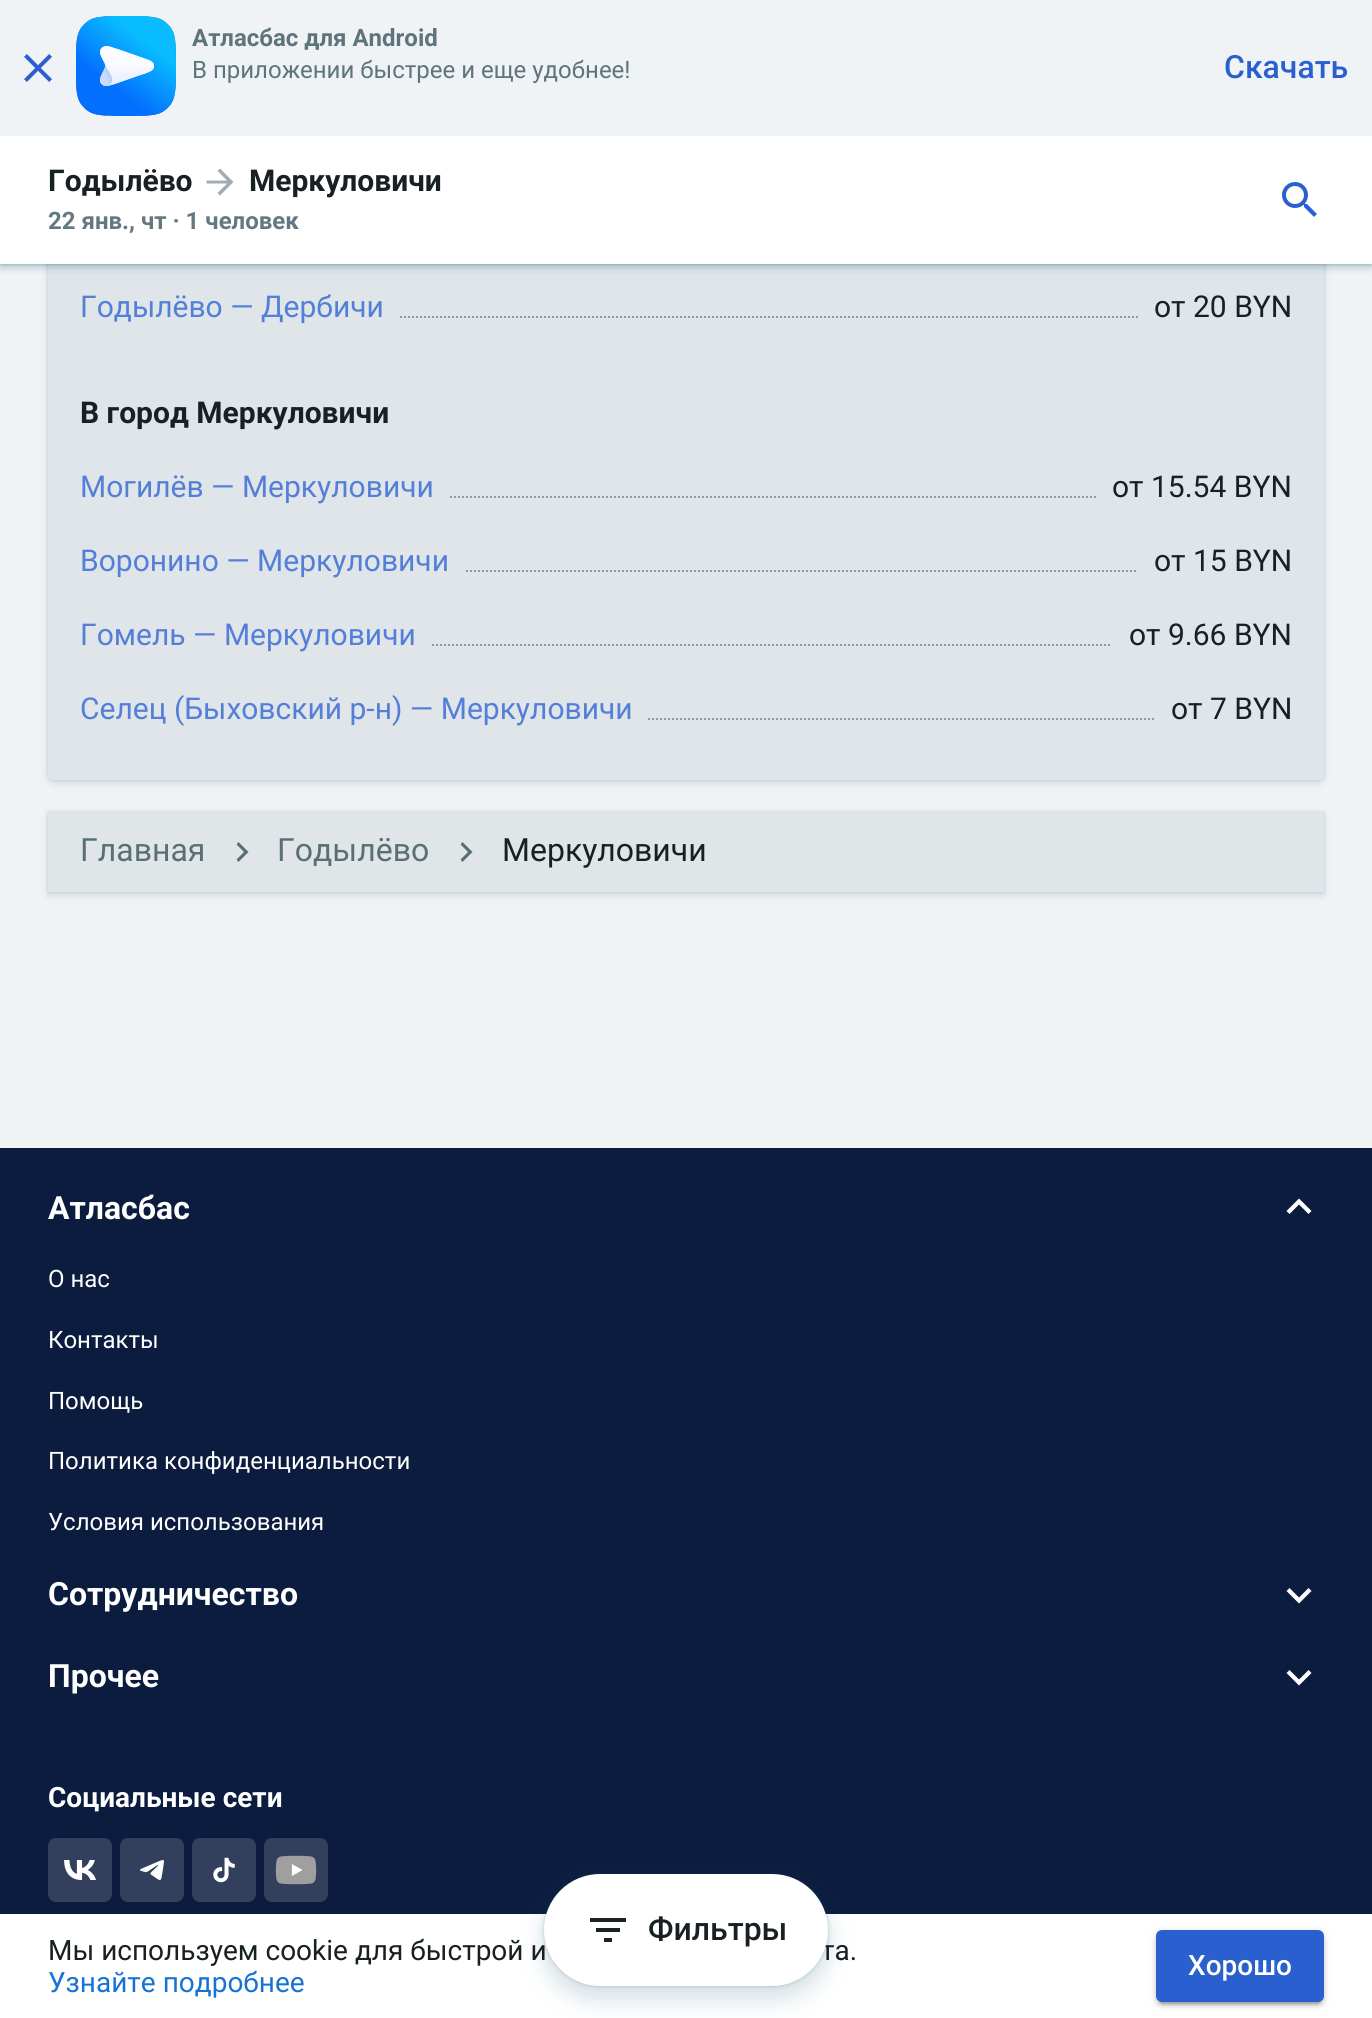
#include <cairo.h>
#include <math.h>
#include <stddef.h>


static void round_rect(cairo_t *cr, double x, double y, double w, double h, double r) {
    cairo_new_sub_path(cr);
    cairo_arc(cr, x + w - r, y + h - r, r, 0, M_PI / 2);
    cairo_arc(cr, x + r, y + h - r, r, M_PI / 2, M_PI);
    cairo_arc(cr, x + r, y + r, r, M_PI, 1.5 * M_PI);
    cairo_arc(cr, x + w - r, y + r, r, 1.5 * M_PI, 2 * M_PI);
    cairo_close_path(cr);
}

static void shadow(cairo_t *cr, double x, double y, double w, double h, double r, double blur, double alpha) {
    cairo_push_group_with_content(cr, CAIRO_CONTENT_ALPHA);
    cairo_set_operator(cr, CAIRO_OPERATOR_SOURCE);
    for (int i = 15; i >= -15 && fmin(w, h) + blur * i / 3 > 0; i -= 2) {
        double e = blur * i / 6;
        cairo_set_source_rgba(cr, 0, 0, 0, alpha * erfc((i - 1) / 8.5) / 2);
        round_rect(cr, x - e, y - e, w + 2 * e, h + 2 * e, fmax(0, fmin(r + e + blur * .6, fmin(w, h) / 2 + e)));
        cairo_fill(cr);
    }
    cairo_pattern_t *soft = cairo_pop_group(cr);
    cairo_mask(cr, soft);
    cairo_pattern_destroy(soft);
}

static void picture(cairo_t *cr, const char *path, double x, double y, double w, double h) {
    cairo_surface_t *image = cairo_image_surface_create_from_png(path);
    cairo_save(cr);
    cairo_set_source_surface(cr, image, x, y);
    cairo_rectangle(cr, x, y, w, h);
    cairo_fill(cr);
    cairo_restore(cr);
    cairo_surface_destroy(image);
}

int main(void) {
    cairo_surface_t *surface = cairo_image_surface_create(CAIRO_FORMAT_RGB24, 1372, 2018);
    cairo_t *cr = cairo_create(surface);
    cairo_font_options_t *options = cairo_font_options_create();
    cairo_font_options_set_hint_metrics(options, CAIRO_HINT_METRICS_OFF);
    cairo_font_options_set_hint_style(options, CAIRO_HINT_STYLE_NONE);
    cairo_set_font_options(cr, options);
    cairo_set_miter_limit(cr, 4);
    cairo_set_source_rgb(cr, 0.941, 0.953, 0.961);
    cairo_paint(cr);
    cairo_save(cr);
    cairo_set_fill_rule(cr, CAIRO_FILL_RULE_EVEN_ODD);
    cairo_new_path(cr);
    cairo_move_to(cr, 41, 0);
    cairo_line_to(cr, 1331, 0);
    cairo_line_to(cr, 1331, 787);
    cairo_line_to(cr, 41, 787);
    cairo_close_path(cr);
    cairo_move_to(cr, 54, -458);
    cairo_line_to(cr, 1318, -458);
    cairo_curve_to(cr, 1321.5, -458, 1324, -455.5, 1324, -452);
    cairo_line_to(cr, 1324, 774);
    cairo_curve_to(cr, 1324, 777.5, 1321.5, 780, 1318, 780);
    cairo_line_to(cr, 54, 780);
    cairo_curve_to(cr, 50.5, 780, 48, 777.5, 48, 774);
    cairo_line_to(cr, 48, -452);
    cairo_curve_to(cr, 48, -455.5, 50.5, -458, 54, -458);
    cairo_close_path(cr);
    cairo_clip(cr);
    cairo_set_source_rgb(cr, 0.031, 0.306, 0.408);
    shadow(cr, 48, -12, 1276, 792, 6, 2, 0.18);
    cairo_restore(cr);
    cairo_save(cr);
    cairo_set_fill_rule(cr, CAIRO_FILL_RULE_EVEN_ODD);
    cairo_new_path(cr);
    cairo_move_to(cr, 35, 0);
    cairo_line_to(cr, 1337, 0);
    cairo_line_to(cr, 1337, 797);
    cairo_line_to(cr, 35, 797);
    cairo_close_path(cr);
    cairo_move_to(cr, 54, -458);
    cairo_line_to(cr, 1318, -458);
    cairo_curve_to(cr, 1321.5, -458, 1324, -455.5, 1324, -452);
    cairo_line_to(cr, 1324, 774);
    cairo_curve_to(cr, 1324, 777.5, 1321.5, 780, 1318, 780);
    cairo_line_to(cr, 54, 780);
    cairo_curve_to(cr, 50.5, 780, 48, 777.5, 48, 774);
    cairo_line_to(cr, 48, -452);
    cairo_curve_to(cr, 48, -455.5, 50.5, -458, 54, -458);
    cairo_close_path(cr);
    cairo_clip(cr);
    cairo_set_source_rgb(cr, 0.031, 0.306, 0.408);
    shadow(cr, 48, -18, 1276, 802, 6, 4, 0.12);
    cairo_restore(cr);
    cairo_set_source_rgba(cr, 0.169, 0.29, 0.333, 0.08);
    round_rect(cr, 48, -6, 1276, 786, 6);
    cairo_fill(cr);
    cairo_set_source_rgb(cr, 0.031, 0.306, 0.408);
    shadow(cr, 0, 0, 1372, 264, 0, 2, 0.18);
    shadow(cr, 0, 4, 1372, 264, 0, 4, 0.12);
    shadow(cr, 0, 0, 1372, 264, 0, 2, 0.18);
    shadow(cr, 0, 4, 1372, 264, 0, 4, 0.12);
    cairo_set_source_rgb(cr, 0.941, 0.953, 0.961);
    cairo_rectangle(cr, 0, 0, 1372, 136);
    cairo_fill(cr);
    picture(cr, "img1.png", 24, 54, 28, 28);
    picture(cr, "img2.png", 76, 16, 100, 100);
    cairo_select_font_face(cr, "Roboto", CAIRO_FONT_SLANT_NORMAL, CAIRO_FONT_WEIGHT_BOLD);
    cairo_set_font_size(cr, 24);
    cairo_set_source_rgb(cr, 0.369, 0.455, 0.482);
    cairo_move_to(cr, 192, 46);
    cairo_show_text(cr, "Атласбас для Android");
    cairo_select_font_face(cr, "Roboto", CAIRO_FONT_SLANT_NORMAL, CAIRO_FONT_WEIGHT_NORMAL);
    cairo_move_to(cr, 192, 78);
    cairo_show_text(cr, "В приложении быстрее и еще удобнее!");
    cairo_select_font_face(cr, "Roboto Medium", CAIRO_FONT_SLANT_NORMAL, CAIRO_FONT_WEIGHT_NORMAL);
    cairo_set_font_size(cr, 32);
    cairo_set_source_rgb(cr, 0.165, 0.373, 0.812);
    cairo_move_to(cr, 1224, 78);
    cairo_show_text(cr, "Скачать");
    cairo_set_source_rgb(cr, 1, 1, 1);
    cairo_rectangle(cr, 0, 136, 1372, 128);
    cairo_fill(cr);
    cairo_select_font_face(cr, "Roboto", CAIRO_FONT_SLANT_NORMAL, CAIRO_FONT_WEIGHT_BOLD);
    cairo_set_font_size(cr, 30);
    cairo_set_source_rgb(cr, 0.094, 0.125, 0.137);
    cairo_move_to(cr, 48, 191);
    cairo_show_text(cr, "Годылёво");
    cairo_set_source_rgb(cr, 0.631, 0.678, 0.702);
    cairo_new_path(cr);
    cairo_move_to(cr, 220, 168.5);
    cairo_line_to(cr, 217.5, 171);
    cairo_line_to(cr, 227, 180.5);
    cairo_line_to(cr, 206.5, 180.5);
    cairo_line_to(cr, 206.5, 183.5);
    cairo_line_to(cr, 227, 183.5);
    cairo_line_to(cr, 217.5, 193);
    cairo_line_to(cr, 220, 195.5);
    cairo_line_to(cr, 233.5, 182);
    cairo_close_path(cr);
    cairo_fill(cr);
    cairo_set_source_rgb(cr, 0.094, 0.125, 0.137);
    cairo_move_to(cr, 249, 191);
    cairo_show_text(cr, "Меркуловичи");
    cairo_set_font_size(cr, 24);
    cairo_set_source_rgb(cr, 0.392, 0.471, 0.498);
    cairo_move_to(cr, 48, 229);
    cairo_show_text(cr, "22 янв., чт · 1 человек");
    picture(cr, "img3.png", 1282, 182, 35, 35);
    cairo_select_font_face(cr, "Roboto", CAIRO_FONT_SLANT_NORMAL, CAIRO_FONT_WEIGHT_NORMAL);
    cairo_set_font_size(cr, 30);
    cairo_set_source_rgb(cr, 0.329, 0.498, 0.847);
    cairo_move_to(cr, 80, 317);
    cairo_show_text(cr, "Годылёво — Дербичи");
    cairo_new_path(cr);
    cairo_move_to(cr, 400, 317);
    cairo_line_to(cr, 1138, 317);
    cairo_set_source_rgb(cr, 0.557, 0.62, 0.651);
    cairo_set_dash(cr, (double[]){2, 2}, 2, 0);
    cairo_stroke(cr);
    cairo_set_source_rgb(cr, 0.094, 0.125, 0.137);
    cairo_move_to(cr, 1154, 317);
    cairo_show_text(cr, "от 20 BYN");
    cairo_select_font_face(cr, "Roboto", CAIRO_FONT_SLANT_NORMAL, CAIRO_FONT_WEIGHT_BOLD);
    cairo_move_to(cr, 80, 423);
    cairo_show_text(cr, "В город Меркуловичи");
    cairo_select_font_face(cr, "Roboto", CAIRO_FONT_SLANT_NORMAL, CAIRO_FONT_WEIGHT_NORMAL);
    cairo_set_source_rgb(cr, 0.329, 0.498, 0.847);
    cairo_move_to(cr, 80, 497);
    cairo_show_text(cr, "Могилёв — Меркуловичи");
    cairo_new_path(cr);
    cairo_move_to(cr, 450, 497);
    cairo_line_to(cr, 1096, 497);
    cairo_set_source_rgb(cr, 0.557, 0.62, 0.651);
    cairo_stroke(cr);
    cairo_set_source_rgb(cr, 0.094, 0.125, 0.137);
    cairo_move_to(cr, 1112, 497);
    cairo_show_text(cr, "от 15.54 BYN");
    cairo_set_source_rgb(cr, 0.329, 0.498, 0.847);
    cairo_move_to(cr, 80, 571);
    cairo_show_text(cr, "Воронино — Меркуловичи");
    cairo_new_path(cr);
    cairo_move_to(cr, 466, 571);
    cairo_line_to(cr, 1138, 571);
    cairo_set_source_rgb(cr, 0.557, 0.62, 0.651);
    cairo_stroke(cr);
    cairo_set_source_rgb(cr, 0.094, 0.125, 0.137);
    cairo_move_to(cr, 1154, 571);
    cairo_show_text(cr, "от 15 BYN");
    cairo_set_source_rgb(cr, 0.329, 0.498, 0.847);
    cairo_move_to(cr, 80, 645);
    cairo_show_text(cr, "Гомель — Меркуловичи");
    cairo_new_path(cr);
    cairo_move_to(cr, 432, 645);
    cairo_line_to(cr, 1112, 645);
    cairo_set_source_rgb(cr, 0.557, 0.62, 0.651);
    cairo_stroke(cr);
    cairo_set_source_rgb(cr, 0.094, 0.125, 0.137);
    cairo_move_to(cr, 1129, 645);
    cairo_show_text(cr, "от 9.66 BYN");
    cairo_set_source_rgb(cr, 0.329, 0.498, 0.847);
    cairo_move_to(cr, 80, 719);
    cairo_show_text(cr, "Селец (Быховский р-н) — Меркуловичи");
    cairo_new_path(cr);
    cairo_move_to(cr, 648, 719);
    cairo_line_to(cr, 1154, 719);
    cairo_set_source_rgb(cr, 0.557, 0.62, 0.651);
    cairo_stroke(cr);
    cairo_set_source_rgb(cr, 0.094, 0.125, 0.137);
    cairo_move_to(cr, 1171, 719);
    cairo_show_text(cr, "от 7 BYN");
    cairo_set_source_rgb(cr, 0.031, 0.306, 0.408);
    shadow(cr, 48, 812, 1276, 80, 0, 2, 0.18);
    shadow(cr, 48, 816, 1276, 80, 0, 4, 0.12);
    cairo_set_source_rgb(cr, 0.878, 0.902, 0.91);
    cairo_rectangle(cr, 48, 812, 1276, 80);
    cairo_fill(cr);
    cairo_set_font_size(cr, 32);
    cairo_set_source_rgb(cr, 0.345, 0.435, 0.463);
    cairo_move_to(cr, 80, 861);
    cairo_show_text(cr, "Главная");
    cairo_new_path(cr);
    cairo_move_to(cr, 238.5, 842);
    cairo_line_to(cr, 236.5, 844.5);
    cairo_line_to(cr, 244, 852);
    cairo_line_to(cr, 236.5, 859.5);
    cairo_line_to(cr, 238.5, 862);
    cairo_line_to(cr, 248.5, 852);
    cairo_close_path(cr);
    cairo_fill(cr);
    cairo_move_to(cr, 277, 861);
    cairo_show_text(cr, "Годылёво");
    cairo_new_path(cr);
    cairo_move_to(cr, 462.5, 842);
    cairo_line_to(cr, 460.5, 844.5);
    cairo_line_to(cr, 468, 852);
    cairo_line_to(cr, 460.5, 859.5);
    cairo_line_to(cr, 462.5, 862);
    cairo_line_to(cr, 472.5, 852);
    cairo_close_path(cr);
    cairo_fill(cr);
    cairo_set_source_rgb(cr, 0.094, 0.125, 0.137);
    cairo_move_to(cr, 502, 861);
    cairo_show_text(cr, "Меркуловичи");
    cairo_set_source_rgb(cr, 0.047, 0.11, 0.243);
    cairo_rectangle(cr, 0, 1148, 1372, 766);
    cairo_fill(cr);
    cairo_select_font_face(cr, "Roboto", CAIRO_FONT_SLANT_NORMAL, CAIRO_FONT_WEIGHT_BOLD);
    cairo_set_source_rgb(cr, 1, 1, 1);
    cairo_move_to(cr, 48, 1219);
    cairo_show_text(cr, "Атласбас");
    cairo_new_path(cr);
    cairo_move_to(cr, 1289.5, 1214);
    cairo_line_to(cr, 1299, 1204.5);
    cairo_line_to(cr, 1308.5, 1214);
    cairo_line_to(cr, 1311.5, 1211);
    cairo_line_to(cr, 1299, 1198.5);
    cairo_line_to(cr, 1286.5, 1211);
    cairo_close_path(cr);
    cairo_fill(cr);
    cairo_select_font_face(cr, "Roboto", CAIRO_FONT_SLANT_NORMAL, CAIRO_FONT_WEIGHT_NORMAL);
    cairo_set_font_size(cr, 24);
    cairo_move_to(cr, 48, 1287);
    cairo_show_text(cr, "О нас");
    cairo_move_to(cr, 48, 1348);
    cairo_show_text(cr, "Контакты");
    cairo_move_to(cr, 48, 1409);
    cairo_show_text(cr, "Помощь");
    cairo_move_to(cr, 48, 1469);
    cairo_show_text(cr, "Политика конфиденциальности");
    cairo_move_to(cr, 48, 1530);
    cairo_show_text(cr, "Условия использования");
    cairo_select_font_face(cr, "Roboto", CAIRO_FONT_SLANT_NORMAL, CAIRO_FONT_WEIGHT_BOLD);
    cairo_set_font_size(cr, 32);
    cairo_move_to(cr, 48, 1605);
    cairo_show_text(cr, "Сотрудничество");
    cairo_new_path(cr);
    cairo_move_to(cr, 1308.5, 1588);
    cairo_line_to(cr, 1299, 1597.5);
    cairo_line_to(cr, 1289.5, 1588);
    cairo_line_to(cr, 1286.5, 1591);
    cairo_line_to(cr, 1299, 1603.5);
    cairo_line_to(cr, 1311.5, 1591);
    cairo_close_path(cr);
    cairo_fill(cr);
    cairo_move_to(cr, 48, 1687);
    cairo_show_text(cr, "Прочее");
    cairo_new_path(cr);
    cairo_move_to(cr, 1308.5, 1670);
    cairo_line_to(cr, 1299, 1679.5);
    cairo_line_to(cr, 1289.5, 1670);
    cairo_line_to(cr, 1286.5, 1673);
    cairo_line_to(cr, 1299, 1685.5);
    cairo_line_to(cr, 1311.5, 1673);
    cairo_close_path(cr);
    cairo_fill(cr);
    cairo_set_font_size(cr, 28);
    cairo_move_to(cr, 48, 1807);
    cairo_show_text(cr, "Социальные сети");
    cairo_set_source_rgb(cr, 0.2, 0.251, 0.365);
    round_rect(cr, 48, 1838, 64, 64, 8);
    cairo_fill(cr);
    picture(cr, "img4.png", 64, 1860, 32, 20);
    round_rect(cr, 120, 1838, 64, 64, 8);
    cairo_fill(cr);
    picture(cr, "img5.png", 140, 1860, 24, 20);
    round_rect(cr, 192, 1838, 64, 64, 8);
    cairo_fill(cr);
    picture(cr, "img6.png", 213, 1857, 22, 26);
    round_rect(cr, 264, 1838, 64, 64, 8);
    cairo_fill(cr);
    picture(cr, "img7.png", 275, 1855, 42, 30);
    cairo_set_source_rgb(cr, 1, 1, 1);
    cairo_rectangle(cr, 0, 1914, 1372, 104);
    cairo_fill(cr);
    cairo_set_source_rgb(cr, 0.031, 0.306, 0.408);
    shadow(cr, 544, 1874, 284, 112, 56, 2, 0.26);
    shadow(cr, 544, 1886, 284, 112, 56, 12, 0.18);
    cairo_select_font_face(cr, "Roboto", CAIRO_FONT_SLANT_NORMAL, CAIRO_FONT_WEIGHT_NORMAL);
    cairo_set_source_rgb(cr, 0.094, 0.125, 0.137);
    cairo_move_to(cr, 48, 1960);
    cairo_show_text(cr, "Мы используем cookie для быстрой и");
    cairo_move_to(cr, 821, 1960);
    cairo_show_text(cr, "та.");
    cairo_set_source_rgb(cr, 1, 1, 1);
    round_rect(cr, 544, 1874, 284, 112, 56);
    cairo_fill(cr);
    cairo_set_source_rgb(cr, 0.106, 0.137, 0.145);
    cairo_new_path(cr);
    cairo_move_to(cr, 604, 1942);
    cairo_line_to(cr, 612, 1942);
    cairo_line_to(cr, 612, 1938);
    cairo_line_to(cr, 604, 1938);
    cairo_close_path(cr);
    cairo_move_to(cr, 590, 1918);
    cairo_line_to(cr, 590, 1922);
    cairo_line_to(cr, 626, 1922);
    cairo_line_to(cr, 626, 1918);
    cairo_close_path(cr);
    cairo_move_to(cr, 596, 1932);
    cairo_line_to(cr, 620, 1932);
    cairo_line_to(cr, 620, 1928);
    cairo_line_to(cr, 596, 1928);
    cairo_close_path(cr);
    cairo_fill(cr);
    cairo_select_font_face(cr, "Roboto Medium", CAIRO_FONT_SLANT_NORMAL, CAIRO_FONT_WEIGHT_NORMAL);
    cairo_set_font_size(cr, 32);
    cairo_set_source_rgb(cr, 0.094, 0.125, 0.137);
    cairo_move_to(cr, 648, 1940);
    cairo_show_text(cr, "Фильтры");
    cairo_select_font_face(cr, "Roboto", CAIRO_FONT_SLANT_NORMAL, CAIRO_FONT_WEIGHT_NORMAL);
    cairo_set_font_size(cr, 28);
    cairo_set_source_rgb(cr, 0.086, 0.451, 0.839);
    cairo_move_to(cr, 48, 1992);
    cairo_show_text(cr, "Узнайте подробнее");
    cairo_set_source_rgb(cr, 0, 0, 0);
    shadow(cr, 1156, 1932, 168, 72, 6, 5, 0.12);
    shadow(cr, 1156, 1934, 168, 72, 6, 2, 0.14);
    shadow(cr, 1160, 1940, 160, 64, 2, 1, 0.2);
    cairo_set_source_rgb(cr, 0.165, 0.373, 0.812);
    round_rect(cr, 1156, 1930, 168, 72, 6);
    cairo_fill(cr);
    cairo_select_font_face(cr, "Roboto Medium", CAIRO_FONT_SLANT_NORMAL, CAIRO_FONT_WEIGHT_NORMAL);
    cairo_set_source_rgb(cr, 1, 1, 1);
    cairo_move_to(cr, 1188, 1975);
    cairo_show_text(cr, "Хорошо");
    cairo_surface_write_to_png(surface, "page.png");
    cairo_font_options_destroy(options);
    cairo_destroy(cr);
    cairo_surface_destroy(surface);
    return 0;
}
